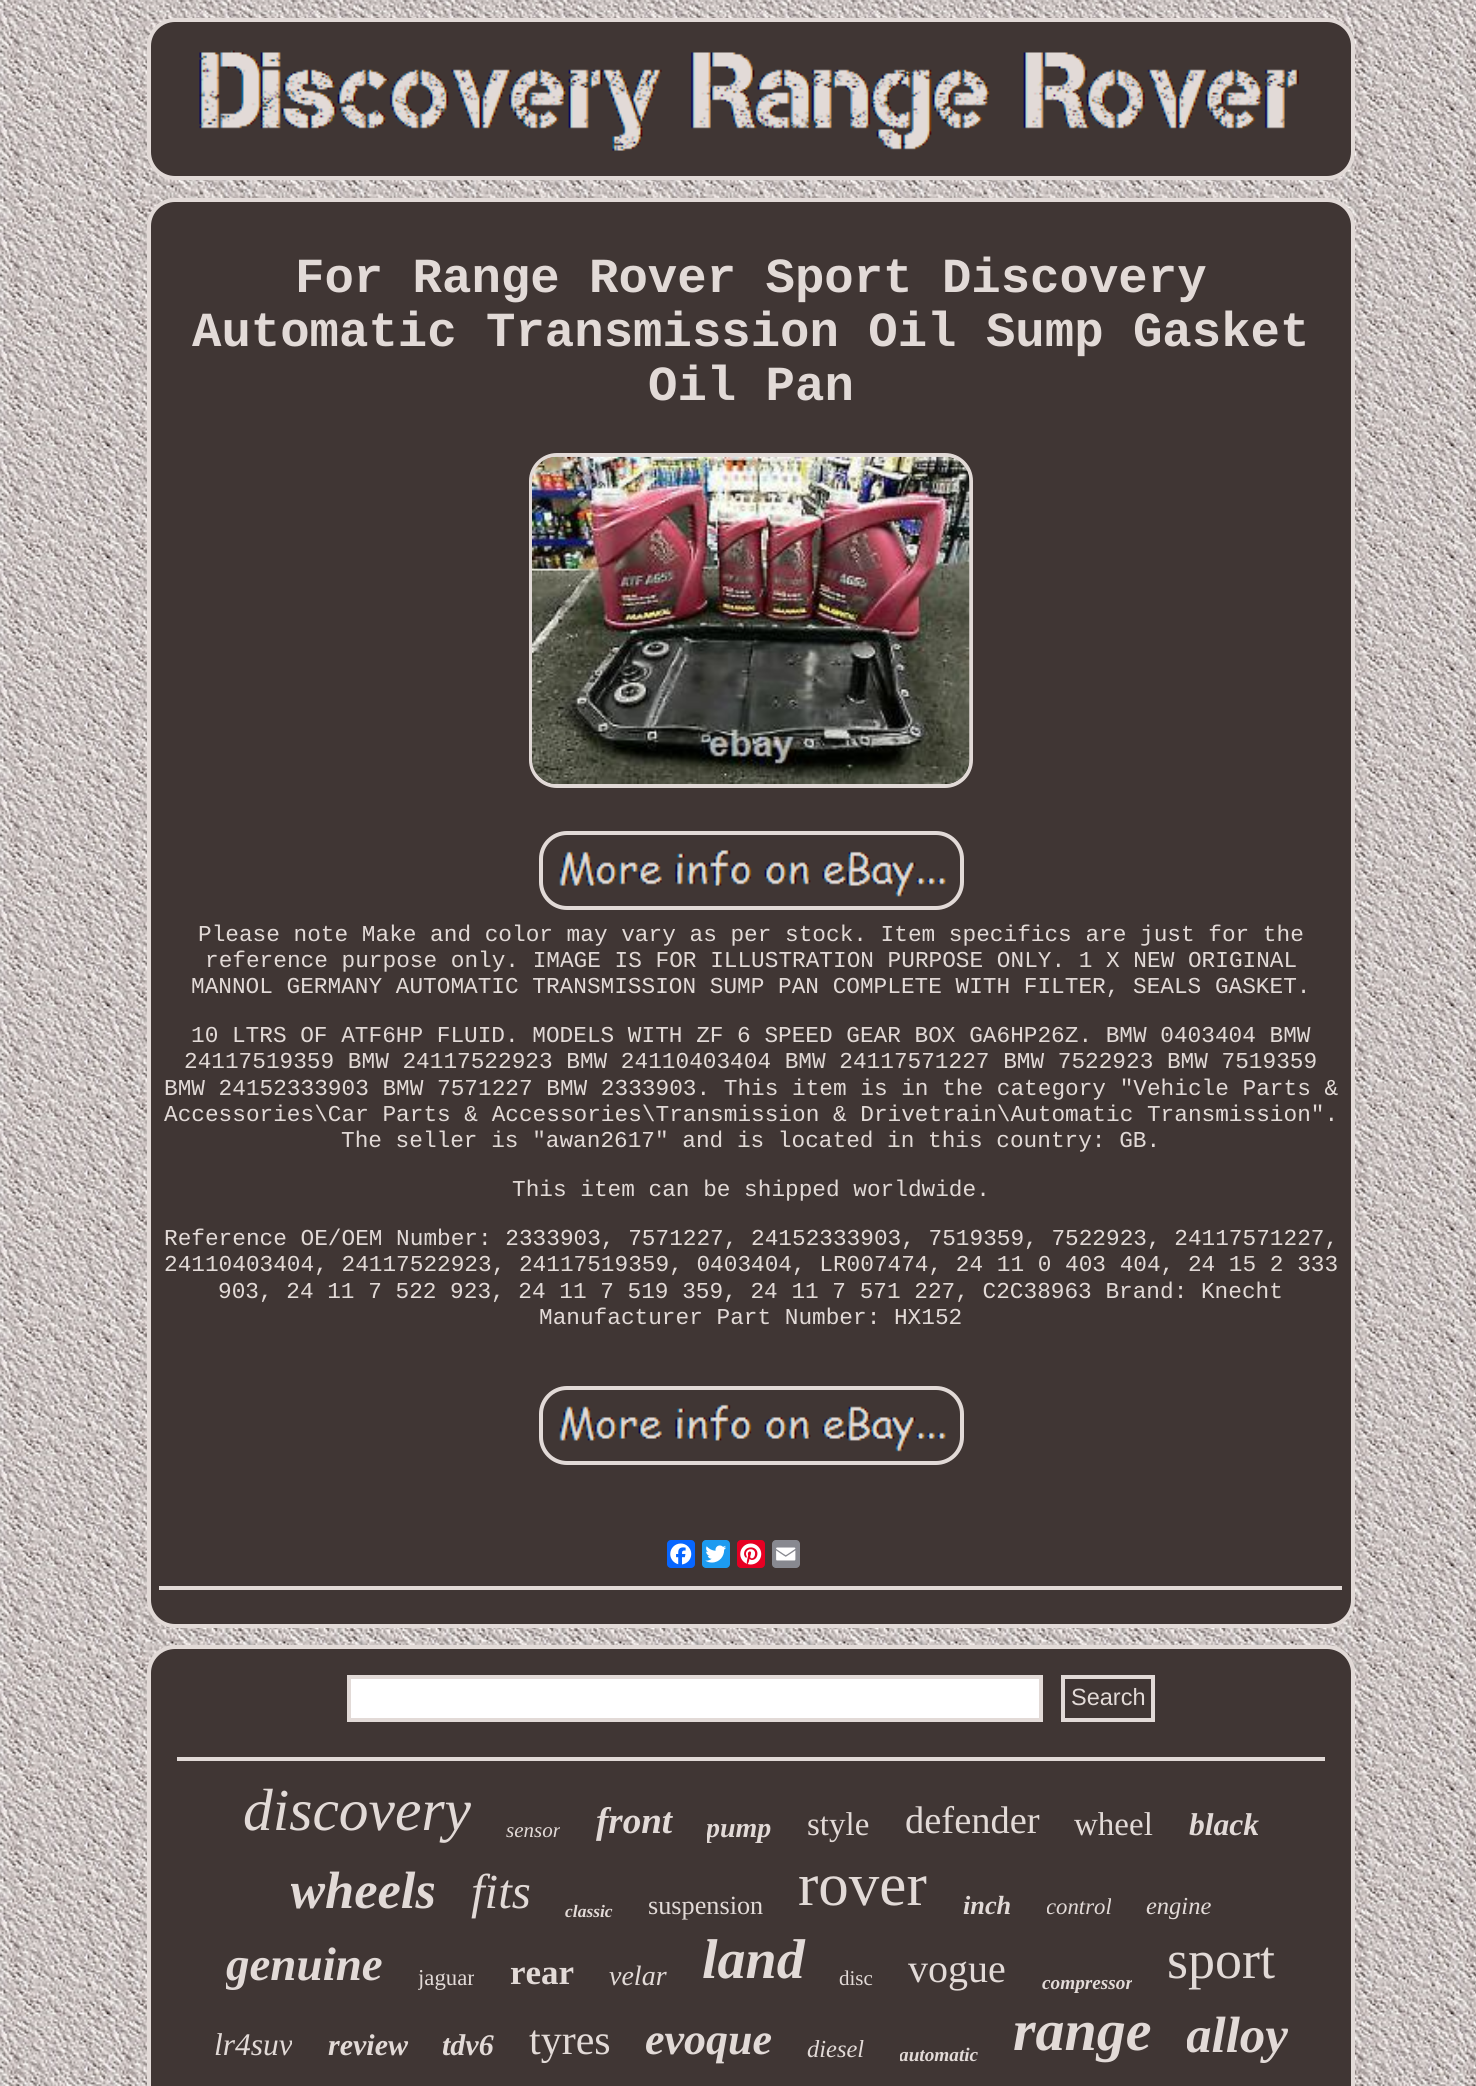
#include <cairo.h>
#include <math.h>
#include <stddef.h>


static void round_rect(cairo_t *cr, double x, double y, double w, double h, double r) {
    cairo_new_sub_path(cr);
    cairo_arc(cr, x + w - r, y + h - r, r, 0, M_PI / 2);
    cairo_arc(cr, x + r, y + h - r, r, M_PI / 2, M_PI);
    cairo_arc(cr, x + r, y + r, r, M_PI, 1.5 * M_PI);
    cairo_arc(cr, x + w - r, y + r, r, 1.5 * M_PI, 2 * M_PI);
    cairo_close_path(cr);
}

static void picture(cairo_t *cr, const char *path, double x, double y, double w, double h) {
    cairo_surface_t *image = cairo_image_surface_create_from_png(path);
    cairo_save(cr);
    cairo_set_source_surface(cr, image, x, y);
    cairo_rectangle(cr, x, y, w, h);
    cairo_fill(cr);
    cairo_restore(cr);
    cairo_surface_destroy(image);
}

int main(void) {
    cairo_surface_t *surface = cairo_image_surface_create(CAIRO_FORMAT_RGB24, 1476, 2086);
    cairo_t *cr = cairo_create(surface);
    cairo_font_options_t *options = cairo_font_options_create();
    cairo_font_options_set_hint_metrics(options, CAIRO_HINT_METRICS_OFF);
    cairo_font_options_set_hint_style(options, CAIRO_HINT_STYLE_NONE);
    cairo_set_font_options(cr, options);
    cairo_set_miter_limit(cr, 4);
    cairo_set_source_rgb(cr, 1, 1, 1);
    cairo_paint(cr);
    picture(cr, "img1.png", 0, 0, 1476, 2086);
    cairo_set_source_rgb(cr, 0.251, 0.212, 0.204);
    round_rect(cr, 149, 20, 1204, 158, 26);
    cairo_fill_preserve(cr);
    cairo_set_source_rgb(cr, 0.886, 0.855, 0.843);
    cairo_set_line_width(cr, 4);
    cairo_stroke(cr);
    picture(cr, "img2.png", 199, 50, 1100, 101);
    cairo_set_source_rgb(cr, 0.251, 0.212, 0.204);
    round_rect(cr, 149, 200, 1204, 1426, 26);
    cairo_fill_preserve(cr);
    cairo_set_source_rgb(cr, 0.886, 0.855, 0.843);
    cairo_stroke(cr);
    cairo_select_font_face(cr, "Liberation Mono", CAIRO_FONT_SLANT_NORMAL, CAIRO_FONT_WEIGHT_BOLD);
    cairo_set_font_size(cr, 49);
    cairo_move_to(cr, 295, 292);
    cairo_show_text(cr, "For Range Rover Sport Discovery");
    cairo_move_to(cr, 192, 346);
    cairo_show_text(cr, "Automatic Transmission Oil Sump Gasket");
    cairo_move_to(cr, 648, 400);
    cairo_show_text(cr, "Oil Pan");
    round_rect(cr, 531, 455, 440, 331, 26);
    cairo_stroke(cr);
    picture(cr, "img3.png", 532, 456, 438, 328);
    round_rect(cr, 541, 833, 421, 75, 26);
    cairo_stroke(cr);
    picture(cr, "img4.png", 559, 850, 387, 47);
    cairo_select_font_face(cr, "Liberation Mono", CAIRO_FONT_SLANT_NORMAL, CAIRO_FONT_WEIGHT_NORMAL);
    cairo_set_font_size(cr, 22.75);
    cairo_move_to(cr, 198, 941);
    cairo_show_text(cr, "Please note Make and color may vary as per stock. Item specifics are just for the");
    cairo_move_to(cr, 205, 967);
    cairo_show_text(cr, "reference purpose only. IMAGE IS FOR ILLUSTRATION PURPOSE ONLY. 1 X NEW ORIGINAL");
    cairo_move_to(cr, 191, 993);
    cairo_show_text(cr, "MANNOL GERMANY AUTOMATIC TRANSMISSION SUMP PAN COMPLETE WITH FILTER, SEALS GASKET.");
    cairo_move_to(cr, 191, 1042);
    cairo_show_text(cr, "10 LTRS OF ATF6HP FLUID. MODELS WITH ZF 6 SPEED GEAR BOX GA6HP26Z. BMW 0403404 BMW");
    cairo_move_to(cr, 184, 1068);
    cairo_show_text(cr, "24117519359 BMW 24117522923 BMW 24110403404 BMW 24117571227 BMW 7522923 BMW 7519359");
    cairo_move_to(cr, 164, 1095);
    cairo_show_text(cr, "BMW 24152333903 BMW 7571227 BMW 2333903. This item is in the category \"Vehicle Parts &");
    cairo_move_to(cr, 164, 1121);
    cairo_show_text(cr, "Accessories\\Car Parts & Accessories\\Transmission & Drivetrain\\Automatic Transmission\".");
    cairo_move_to(cr, 341, 1147);
    cairo_show_text(cr, "The seller is \"awan2617\" and is located in this country: GB.");
    cairo_move_to(cr, 512, 1196);
    cairo_show_text(cr, "This item can be shipped worldwide.");
    cairo_move_to(cr, 164, 1245);
    cairo_show_text(cr, "Reference OE/OEM Number: 2333903, 7571227, 24152333903, 7519359, 7522923, 24117571227,");
    cairo_move_to(cr, 164, 1271);
    cairo_show_text(cr, "24110403404, 24117522923, 24117519359, 0403404, LR007474, 24 11 0 403 404, 24 15 2 333");
    cairo_move_to(cr, 218, 1298);
    cairo_show_text(cr, "903, 24 11 7 522 923, 24 11 7 519 359, 24 11 7 571 227, C2C38963 Brand: Knecht");
    cairo_move_to(cr, 539, 1324);
    cairo_show_text(cr, "Manufacturer Part Number: HX152");
    round_rect(cr, 541, 1388, 421, 75, 26);
    cairo_stroke(cr);
    picture(cr, "img5.png", 559, 1404, 387, 48);
    cairo_set_source_rgb(cr, 0.031, 0.4, 1);
    round_rect(cr, 667, 1540, 28, 28, 4);
    cairo_fill(cr);
    picture(cr, "img6.png", 670, 1543, 22, 22);
    cairo_set_source_rgb(cr, 0.114, 0.608, 0.941);
    round_rect(cr, 702, 1540, 28, 28, 4);
    cairo_fill(cr);
    picture(cr, "img7.png", 705, 1545, 22, 18);
    cairo_set_source_rgb(cr, 0.902, 0, 0.137);
    round_rect(cr, 737, 1540, 28, 28, 4);
    cairo_fill(cr);
    picture(cr, "img8.png", 740, 1543, 22, 22);
    cairo_set_source_rgb(cr, 0.533, 0.537, 0.565);
    round_rect(cr, 772, 1540, 28, 28, 4);
    cairo_fill(cr);
    picture(cr, "img9.png", 776, 1547, 20, 14);
    cairo_set_source_rgb(cr, 0.886, 0.855, 0.843);
    cairo_rectangle(cr, 159, 1586, 1183, 4);
    cairo_fill(cr);
    cairo_set_source_rgb(cr, 0.251, 0.212, 0.204);
    round_rect(cr, 149, 1647, 1204, 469, 26);
    cairo_fill_preserve(cr);
    cairo_set_source_rgb(cr, 0.886, 0.855, 0.843);
    cairo_stroke(cr);
    cairo_set_source_rgb(cr, 1, 1, 1);
    cairo_rectangle(cr, 349, 1677, 692, 43);
    cairo_fill_preserve(cr);
    cairo_set_source_rgb(cr, 0.886, 0.855, 0.843);
    cairo_stroke(cr);
    cairo_rectangle(cr, 1063, 1677, 90, 43);
    cairo_stroke(cr);
    cairo_select_font_face(cr, "Liberation Sans", CAIRO_FONT_SLANT_NORMAL, CAIRO_FONT_WEIGHT_NORMAL);
    cairo_set_font_size(cr, 23.5);
    cairo_move_to(cr, 1071, 1705);
    cairo_show_text(cr, "Search");
    cairo_rectangle(cr, 177, 1757, 1148, 4);
    cairo_fill(cr);
    cairo_select_font_face(cr, "Liberation Serif", CAIRO_FONT_SLANT_ITALIC, CAIRO_FONT_WEIGHT_NORMAL);
    cairo_set_font_size(cr, 59.5);
    cairo_move_to(cr, 243, 1830);
    cairo_show_text(cr, "discovery");
    cairo_save(cr);
    cairo_rectangle(cr, 506, 1818, 54, 27);
    cairo_clip(cr);
    cairo_set_font_size(cr, 21);
    cairo_move_to(cr, 506, 1837);
    cairo_show_text(cr, "sensor");
    cairo_restore(cr);
    cairo_select_font_face(cr, "Liberation Serif", CAIRO_FONT_SLANT_ITALIC, CAIRO_FONT_WEIGHT_BOLD);
    cairo_set_font_size(cr, 37);
    cairo_move_to(cr, 596, 1833);
    cairo_show_text(cr, "front");
    cairo_save(cr);
    cairo_rectangle(cr, 707, 1813, 65, 32);
    cairo_clip(cr);
    cairo_set_font_size(cr, 28);
    cairo_move_to(cr, 706, 1837);
    cairo_show_text(cr, "pump");
    cairo_restore(cr);
    cairo_select_font_face(cr, "Liberation Serif", CAIRO_FONT_SLANT_NORMAL, CAIRO_FONT_WEIGHT_NORMAL);
    cairo_set_font_size(cr, 33);
    cairo_move_to(cr, 807, 1835);
    cairo_show_text(cr, "style");
    cairo_set_font_size(cr, 38.5);
    cairo_move_to(cr, 905, 1833);
    cairo_show_text(cr, "defender");
    cairo_set_font_size(cr, 33);
    cairo_move_to(cr, 1074, 1835);
    cairo_show_text(cr, "wheel");
    cairo_select_font_face(cr, "Liberation Serif", CAIRO_FONT_SLANT_ITALIC, CAIRO_FONT_WEIGHT_BOLD);
    cairo_set_font_size(cr, 31.5);
    cairo_move_to(cr, 1189, 1835);
    cairo_show_text(cr, "black");
    cairo_save(cr);
    cairo_rectangle(cr, 291, 1862, 145, 60);
    cairo_clip(cr);
    cairo_set_font_size(cr, 52.5);
    cairo_move_to(cr, 290, 1908);
    cairo_show_text(cr, "wheels");
    cairo_restore(cr);
    cairo_select_font_face(cr, "Liberation Serif", CAIRO_FONT_SLANT_ITALIC, CAIRO_FONT_WEIGHT_NORMAL);
    cairo_set_font_size(cr, 49);
    cairo_move_to(cr, 471, 1908);
    cairo_show_text(cr, "fits");
    cairo_select_font_face(cr, "Liberation Serif", CAIRO_FONT_SLANT_ITALIC, CAIRO_FONT_WEIGHT_BOLD);
    cairo_set_font_size(cr, 17.5);
    cairo_move_to(cr, 565, 1917);
    cairo_show_text(cr, "classic");
    cairo_select_font_face(cr, "Liberation Serif", CAIRO_FONT_SLANT_NORMAL, CAIRO_FONT_WEIGHT_NORMAL);
    cairo_set_font_size(cr, 26.25);
    cairo_move_to(cr, 648, 1914);
    cairo_show_text(cr, "suspension");
    cairo_set_font_size(cr, 61);
    cairo_move_to(cr, 798, 1905);
    cairo_show_text(cr, "rover");
    cairo_select_font_face(cr, "Liberation Serif", CAIRO_FONT_SLANT_ITALIC, CAIRO_FONT_WEIGHT_BOLD);
    cairo_set_font_size(cr, 26.25);
    cairo_move_to(cr, 963, 1914);
    cairo_show_text(cr, "inch");
    cairo_save(cr);
    cairo_rectangle(cr, 1047, 1894, 64, 28);
    cairo_clip(cr);
    cairo_select_font_face(cr, "Liberation Serif", CAIRO_FONT_SLANT_ITALIC, CAIRO_FONT_WEIGHT_NORMAL);
    cairo_set_font_size(cr, 22.75);
    cairo_move_to(cr, 1046, 1914);
    cairo_show_text(cr, "control");
    cairo_restore(cr);
    cairo_select_font_face(cr, "Liberation Serif", CAIRO_FONT_SLANT_ITALIC, CAIRO_FONT_WEIGHT_NORMAL);
    cairo_set_font_size(cr, 24.5);
    cairo_move_to(cr, 1146, 1914);
    cairo_show_text(cr, "engine");
    cairo_save(cr);
    cairo_rectangle(cr, 226, 1939, 157, 54);
    cairo_clip(cr);
    cairo_select_font_face(cr, "Liberation Serif", CAIRO_FONT_SLANT_ITALIC, CAIRO_FONT_WEIGHT_BOLD);
    cairo_set_font_size(cr, 47);
    cairo_move_to(cr, 226, 1980);
    cairo_show_text(cr, "genuine");
    cairo_restore(cr);
    cairo_save(cr);
    cairo_rectangle(cr, 418, 1965, 56, 28);
    cairo_clip(cr);
    cairo_select_font_face(cr, "Liberation Serif", CAIRO_FONT_SLANT_NORMAL, CAIRO_FONT_WEIGHT_NORMAL);
    cairo_set_font_size(cr, 22.75);
    cairo_move_to(cr, 418, 1985);
    cairo_show_text(cr, "jaguar");
    cairo_restore(cr);
    cairo_select_font_face(cr, "Liberation Serif", CAIRO_FONT_SLANT_NORMAL, CAIRO_FONT_WEIGHT_BOLD);
    cairo_set_font_size(cr, 35);
    cairo_move_to(cr, 510, 1984);
    cairo_show_text(cr, "rear");
    cairo_select_font_face(cr, "Liberation Serif", CAIRO_FONT_SLANT_ITALIC, CAIRO_FONT_WEIGHT_NORMAL);
    cairo_set_font_size(cr, 28);
    cairo_move_to(cr, 609, 1985);
    cairo_show_text(cr, "velar");
    cairo_select_font_face(cr, "Liberation Serif", CAIRO_FONT_SLANT_ITALIC, CAIRO_FONT_WEIGHT_BOLD);
    cairo_set_font_size(cr, 56);
    cairo_move_to(cr, 702, 1978);
    cairo_show_text(cr, "land");
    cairo_select_font_face(cr, "Liberation Serif", CAIRO_FONT_SLANT_NORMAL, CAIRO_FONT_WEIGHT_NORMAL);
    cairo_set_font_size(cr, 21);
    cairo_move_to(cr, 839, 1985);
    cairo_show_text(cr, "disc");
    cairo_set_font_size(cr, 40);
    cairo_move_to(cr, 908, 1982);
    cairo_show_text(cr, "vogue");
    cairo_save(cr);
    cairo_rectangle(cr, 1041, 1972, 91, 21);
    cairo_clip(cr);
    cairo_select_font_face(cr, "Liberation Serif", CAIRO_FONT_SLANT_ITALIC, CAIRO_FONT_WEIGHT_BOLD);
    cairo_set_font_size(cr, 19.25);
    cairo_move_to(cr, 1042, 1989);
    cairo_show_text(cr, "compressor");
    cairo_restore(cr);
    cairo_set_font_size(cr, 54);
    cairo_move_to(cr, 1167, 1978);
    cairo_show_text(cr, "sport");
    cairo_save(cr);
    cairo_rectangle(cr, 214, 2028, 78, 37);
    cairo_clip(cr);
    cairo_select_font_face(cr, "Liberation Serif", CAIRO_FONT_SLANT_ITALIC, CAIRO_FONT_WEIGHT_NORMAL);
    cairo_set_font_size(cr, 31.5);
    cairo_move_to(cr, 214, 2055);
    cairo_show_text(cr, "lr4suv");
    cairo_restore(cr);
    cairo_select_font_face(cr, "Liberation Serif", CAIRO_FONT_SLANT_ITALIC, CAIRO_FONT_WEIGHT_BOLD);
    cairo_set_font_size(cr, 30);
    cairo_move_to(cr, 328, 2055);
    cairo_show_text(cr, "review");
    cairo_move_to(cr, 442, 2055);
    cairo_show_text(cr, "tdv6");
    cairo_select_font_face(cr, "Liberation Serif", CAIRO_FONT_SLANT_NORMAL, CAIRO_FONT_WEIGHT_NORMAL);
    cairo_set_font_size(cr, 42);
    cairo_move_to(cr, 529, 2054);
    cairo_show_text(cr, "tyres");
    cairo_select_font_face(cr, "Liberation Serif", CAIRO_FONT_SLANT_ITALIC, CAIRO_FONT_WEIGHT_BOLD);
    cairo_set_font_size(cr, 44);
    cairo_move_to(cr, 645, 2054);
    cairo_show_text(cr, "evoque");
    cairo_select_font_face(cr, "Liberation Serif", CAIRO_FONT_SLANT_ITALIC, CAIRO_FONT_WEIGHT_NORMAL);
    cairo_set_font_size(cr, 24.5);
    cairo_move_to(cr, 807, 2057);
    cairo_show_text(cr, "diesel");
    cairo_save(cr);
    cairo_rectangle(cr, 900, 2044, 78, 21);
    cairo_clip(cr);
    cairo_select_font_face(cr, "Liberation Serif", CAIRO_FONT_SLANT_ITALIC, CAIRO_FONT_WEIGHT_BOLD);
    cairo_set_font_size(cr, 19.25);
    cairo_move_to(cr, 899, 2061);
    cairo_show_text(cr, "automatic");
    cairo_restore(cr);
    cairo_select_font_face(cr, "Liberation Serif", CAIRO_FONT_SLANT_ITALIC, CAIRO_FONT_WEIGHT_BOLD);
    cairo_set_font_size(cr, 58);
    cairo_move_to(cr, 1013, 2050);
    cairo_show_text(cr, "range");
    cairo_save(cr);
    cairo_rectangle(cr, 1187, 2007, 101, 58);
    cairo_clip(cr);
    cairo_set_font_size(cr, 51);
    cairo_move_to(cr, 1186, 2052);
    cairo_show_text(cr, "alloy");
    cairo_restore(cr);
    cairo_surface_write_to_png(surface, "page.png");
    cairo_font_options_destroy(options);
    cairo_destroy(cr);
    cairo_surface_destroy(surface);
    return 0;
}
